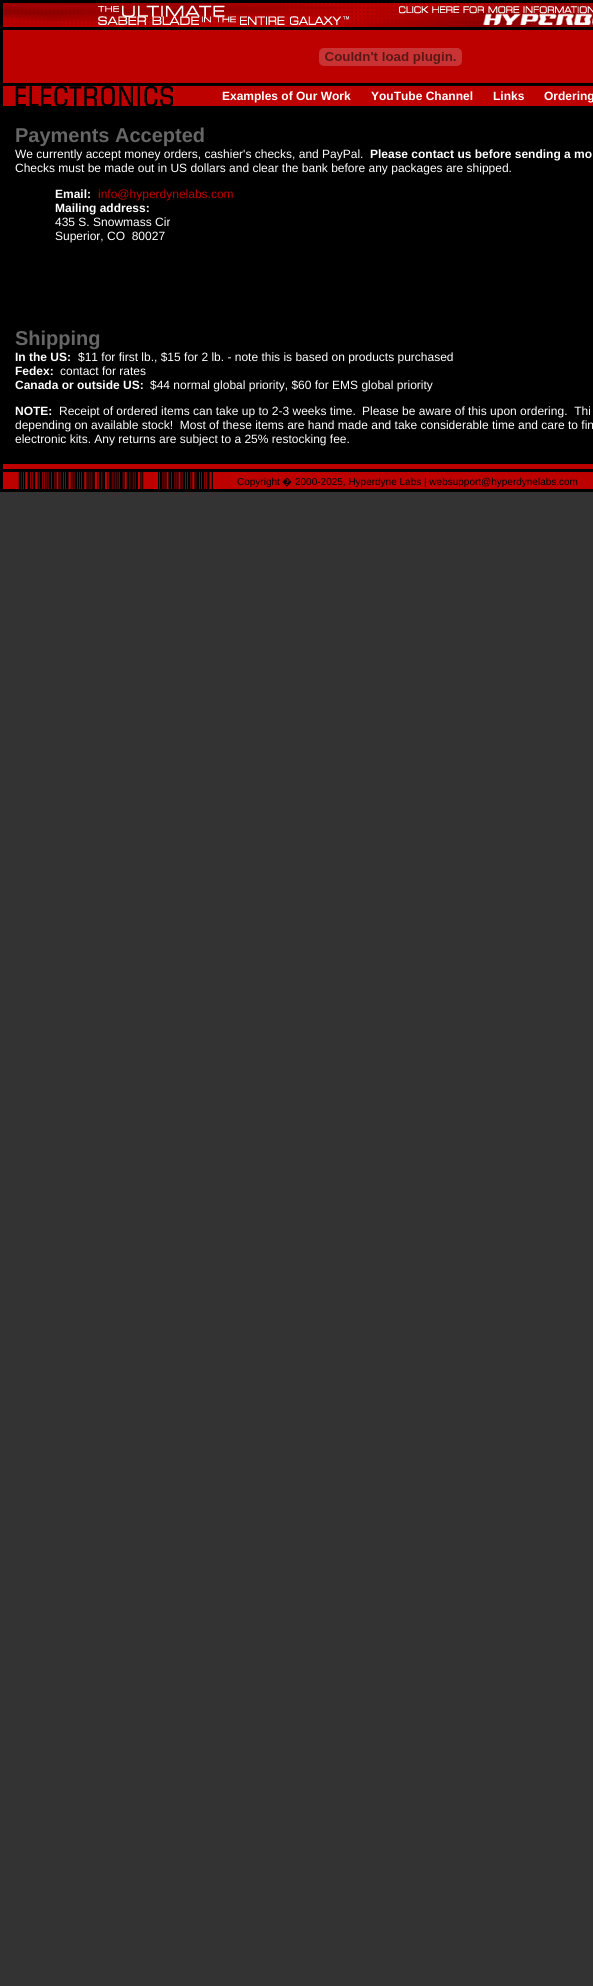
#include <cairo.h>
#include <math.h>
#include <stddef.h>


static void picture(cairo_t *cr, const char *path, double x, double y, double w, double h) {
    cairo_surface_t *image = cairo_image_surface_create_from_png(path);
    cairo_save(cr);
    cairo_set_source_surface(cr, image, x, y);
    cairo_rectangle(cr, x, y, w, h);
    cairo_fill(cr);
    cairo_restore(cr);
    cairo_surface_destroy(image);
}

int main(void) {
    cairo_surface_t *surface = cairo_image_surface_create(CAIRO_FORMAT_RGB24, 593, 1986);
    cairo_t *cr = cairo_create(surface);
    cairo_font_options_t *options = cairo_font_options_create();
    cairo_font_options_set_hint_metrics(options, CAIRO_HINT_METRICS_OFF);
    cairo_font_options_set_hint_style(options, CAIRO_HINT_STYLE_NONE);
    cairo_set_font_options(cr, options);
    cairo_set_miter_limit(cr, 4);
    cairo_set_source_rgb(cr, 0.2, 0.2, 0.2);
    cairo_paint(cr);
    cairo_set_source_rgb(cr, 0, 0, 0);
    cairo_rectangle(cr, 0, 0, 593, 492);
    cairo_fill(cr);
    picture(cr, "img1.png", 3, 3, 590, 24);
    cairo_set_source_rgb(cr, 0.741, 0, 0);
    cairo_rectangle(cr, 3, 30, 590, 53);
    cairo_fill(cr);
    picture(cr, "img2.png", 319, 48, 143, 18);
    cairo_rectangle(cr, 3, 86, 590, 20);
    cairo_fill(cr);
    picture(cr, "img3.png", 15, 86, 158, 20);
    cairo_select_font_face(cr, "Liberation Sans", CAIRO_FONT_SLANT_NORMAL, CAIRO_FONT_WEIGHT_BOLD);
    cairo_set_font_size(cr, 12);
    cairo_set_source_rgb(cr, 1, 1, 1);
    cairo_move_to(cr, 222, 100);
    cairo_show_text(cr, "Examples of Our Work");
    cairo_move_to(cr, 371, 100);
    cairo_show_text(cr, "YouTube Channel");
    cairo_move_to(cr, 493, 100);
    cairo_show_text(cr, "Links");
    cairo_move_to(cr, 544, 100);
    cairo_show_text(cr, "Ordering");
    cairo_set_font_size(cr, 20);
    cairo_set_source_rgb(cr, 0.4, 0.4, 0.4);
    cairo_move_to(cr, 15, 142);
    cairo_show_text(cr, "Payments Accepted");
    cairo_select_font_face(cr, "Liberation Sans", CAIRO_FONT_SLANT_NORMAL, CAIRO_FONT_WEIGHT_NORMAL);
    cairo_set_font_size(cr, 12);
    cairo_set_source_rgb(cr, 1, 1, 1);
    cairo_move_to(cr, 15, 158);
    cairo_show_text(cr, "We currently accept money orders, cashier's checks, and PayPal.");
    cairo_select_font_face(cr, "Liberation Sans", CAIRO_FONT_SLANT_NORMAL, CAIRO_FONT_WEIGHT_BOLD);
    cairo_move_to(cr, 370, 158);
    cairo_show_text(cr, "Please contact us before sending a mo");
    cairo_select_font_face(cr, "Liberation Sans", CAIRO_FONT_SLANT_NORMAL, CAIRO_FONT_WEIGHT_NORMAL);
    cairo_move_to(cr, 15, 172);
    cairo_show_text(cr, "Checks must be made out in US dollars and clear the bank before any packages are shipped.");
    cairo_select_font_face(cr, "Liberation Sans", CAIRO_FONT_SLANT_NORMAL, CAIRO_FONT_WEIGHT_BOLD);
    cairo_move_to(cr, 55, 198);
    cairo_show_text(cr, "Email:");
    cairo_select_font_face(cr, "Liberation Sans", CAIRO_FONT_SLANT_NORMAL, CAIRO_FONT_WEIGHT_NORMAL);
    cairo_set_source_rgb(cr, 0.741, 0, 0);
    cairo_move_to(cr, 98, 198);
    cairo_show_text(cr, "info@hyperdynelabs.com");
    cairo_select_font_face(cr, "Liberation Sans", CAIRO_FONT_SLANT_NORMAL, CAIRO_FONT_WEIGHT_BOLD);
    cairo_set_source_rgb(cr, 1, 1, 1);
    cairo_move_to(cr, 55, 212);
    cairo_show_text(cr, "Mailing address:");
    cairo_select_font_face(cr, "Liberation Sans", CAIRO_FONT_SLANT_NORMAL, CAIRO_FONT_WEIGHT_NORMAL);
    cairo_move_to(cr, 55, 226);
    cairo_show_text(cr, "435 S. Snowmass Cir");
    cairo_move_to(cr, 55, 240);
    cairo_show_text(cr, "Superior, CO  80027");
    cairo_select_font_face(cr, "Liberation Sans", CAIRO_FONT_SLANT_NORMAL, CAIRO_FONT_WEIGHT_BOLD);
    cairo_set_font_size(cr, 20);
    cairo_set_source_rgb(cr, 0.4, 0.4, 0.4);
    cairo_move_to(cr, 15, 345);
    cairo_show_text(cr, "Shipping");
    cairo_set_font_size(cr, 12);
    cairo_set_source_rgb(cr, 1, 1, 1);
    cairo_move_to(cr, 15, 361);
    cairo_show_text(cr, "In the US:");
    cairo_select_font_face(cr, "Liberation Sans", CAIRO_FONT_SLANT_NORMAL, CAIRO_FONT_WEIGHT_NORMAL);
    cairo_move_to(cr, 78, 361);
    cairo_show_text(cr, "$11 for first lb., $15 for 2 lb. - note this is based on products purchased");
    cairo_select_font_face(cr, "Liberation Sans", CAIRO_FONT_SLANT_NORMAL, CAIRO_FONT_WEIGHT_BOLD);
    cairo_move_to(cr, 15, 375);
    cairo_show_text(cr, "Fedex:");
    cairo_select_font_face(cr, "Liberation Sans", CAIRO_FONT_SLANT_NORMAL, CAIRO_FONT_WEIGHT_NORMAL);
    cairo_move_to(cr, 60, 375);
    cairo_show_text(cr, "contact for rates");
    cairo_select_font_face(cr, "Liberation Sans", CAIRO_FONT_SLANT_NORMAL, CAIRO_FONT_WEIGHT_BOLD);
    cairo_move_to(cr, 15, 389);
    cairo_show_text(cr, "Canada or outside US:");
    cairo_select_font_face(cr, "Liberation Sans", CAIRO_FONT_SLANT_NORMAL, CAIRO_FONT_WEIGHT_NORMAL);
    cairo_move_to(cr, 150, 389);
    cairo_show_text(cr, "$44 normal global priority, $60 for EMS global priority");
    cairo_select_font_face(cr, "Liberation Sans", CAIRO_FONT_SLANT_NORMAL, CAIRO_FONT_WEIGHT_BOLD);
    cairo_move_to(cr, 15, 415);
    cairo_show_text(cr, "NOTE:");
    cairo_select_font_face(cr, "Liberation Sans", CAIRO_FONT_SLANT_NORMAL, CAIRO_FONT_WEIGHT_NORMAL);
    cairo_move_to(cr, 59, 415);
    cairo_show_text(cr, "Receipt of ordered items can take up to 2-3 weeks time.");
    cairo_move_to(cr, 362, 415);
    cairo_show_text(cr, "Please be aware of this upon ordering.  Thi");
    cairo_move_to(cr, 15, 429);
    cairo_show_text(cr, "depending on available stock!  Most of these items are hand made and take considerable time and care to fin");
    cairo_move_to(cr, 15, 443);
    cairo_show_text(cr, "electronic kits. Any returns are subject to a 25% restocking fee.");
    cairo_set_source_rgb(cr, 0.741, 0, 0);
    cairo_rectangle(cr, 3, 464, 590, 5);
    cairo_fill(cr);
    cairo_rectangle(cr, 3, 472, 590, 17);
    cairo_fill(cr);
    picture(cr, "img4.png", 18, 472, 195, 17);
    cairo_set_font_size(cr, 10);
    cairo_set_source_rgb(cr, 0, 0, 0);
    cairo_move_to(cr, 237, 485);
    cairo_show_text(cr, "Copyright");
    cairo_select_font_face(cr, "Noto Sans", CAIRO_FONT_SLANT_NORMAL, CAIRO_FONT_WEIGHT_NORMAL);
    cairo_move_to(cr, 282, 485);
    cairo_show_text(cr, "�");
    cairo_select_font_face(cr, "Liberation Sans", CAIRO_FONT_SLANT_NORMAL, CAIRO_FONT_WEIGHT_NORMAL);
    cairo_move_to(cr, 295, 485);
    cairo_show_text(cr, "2000-2025, Hyperdyne Labs | websupport@hyperdynelabs.com");
    cairo_surface_write_to_png(surface, "page.png");
    cairo_font_options_destroy(options);
    cairo_destroy(cr);
    cairo_surface_destroy(surface);
    return 0;
}
